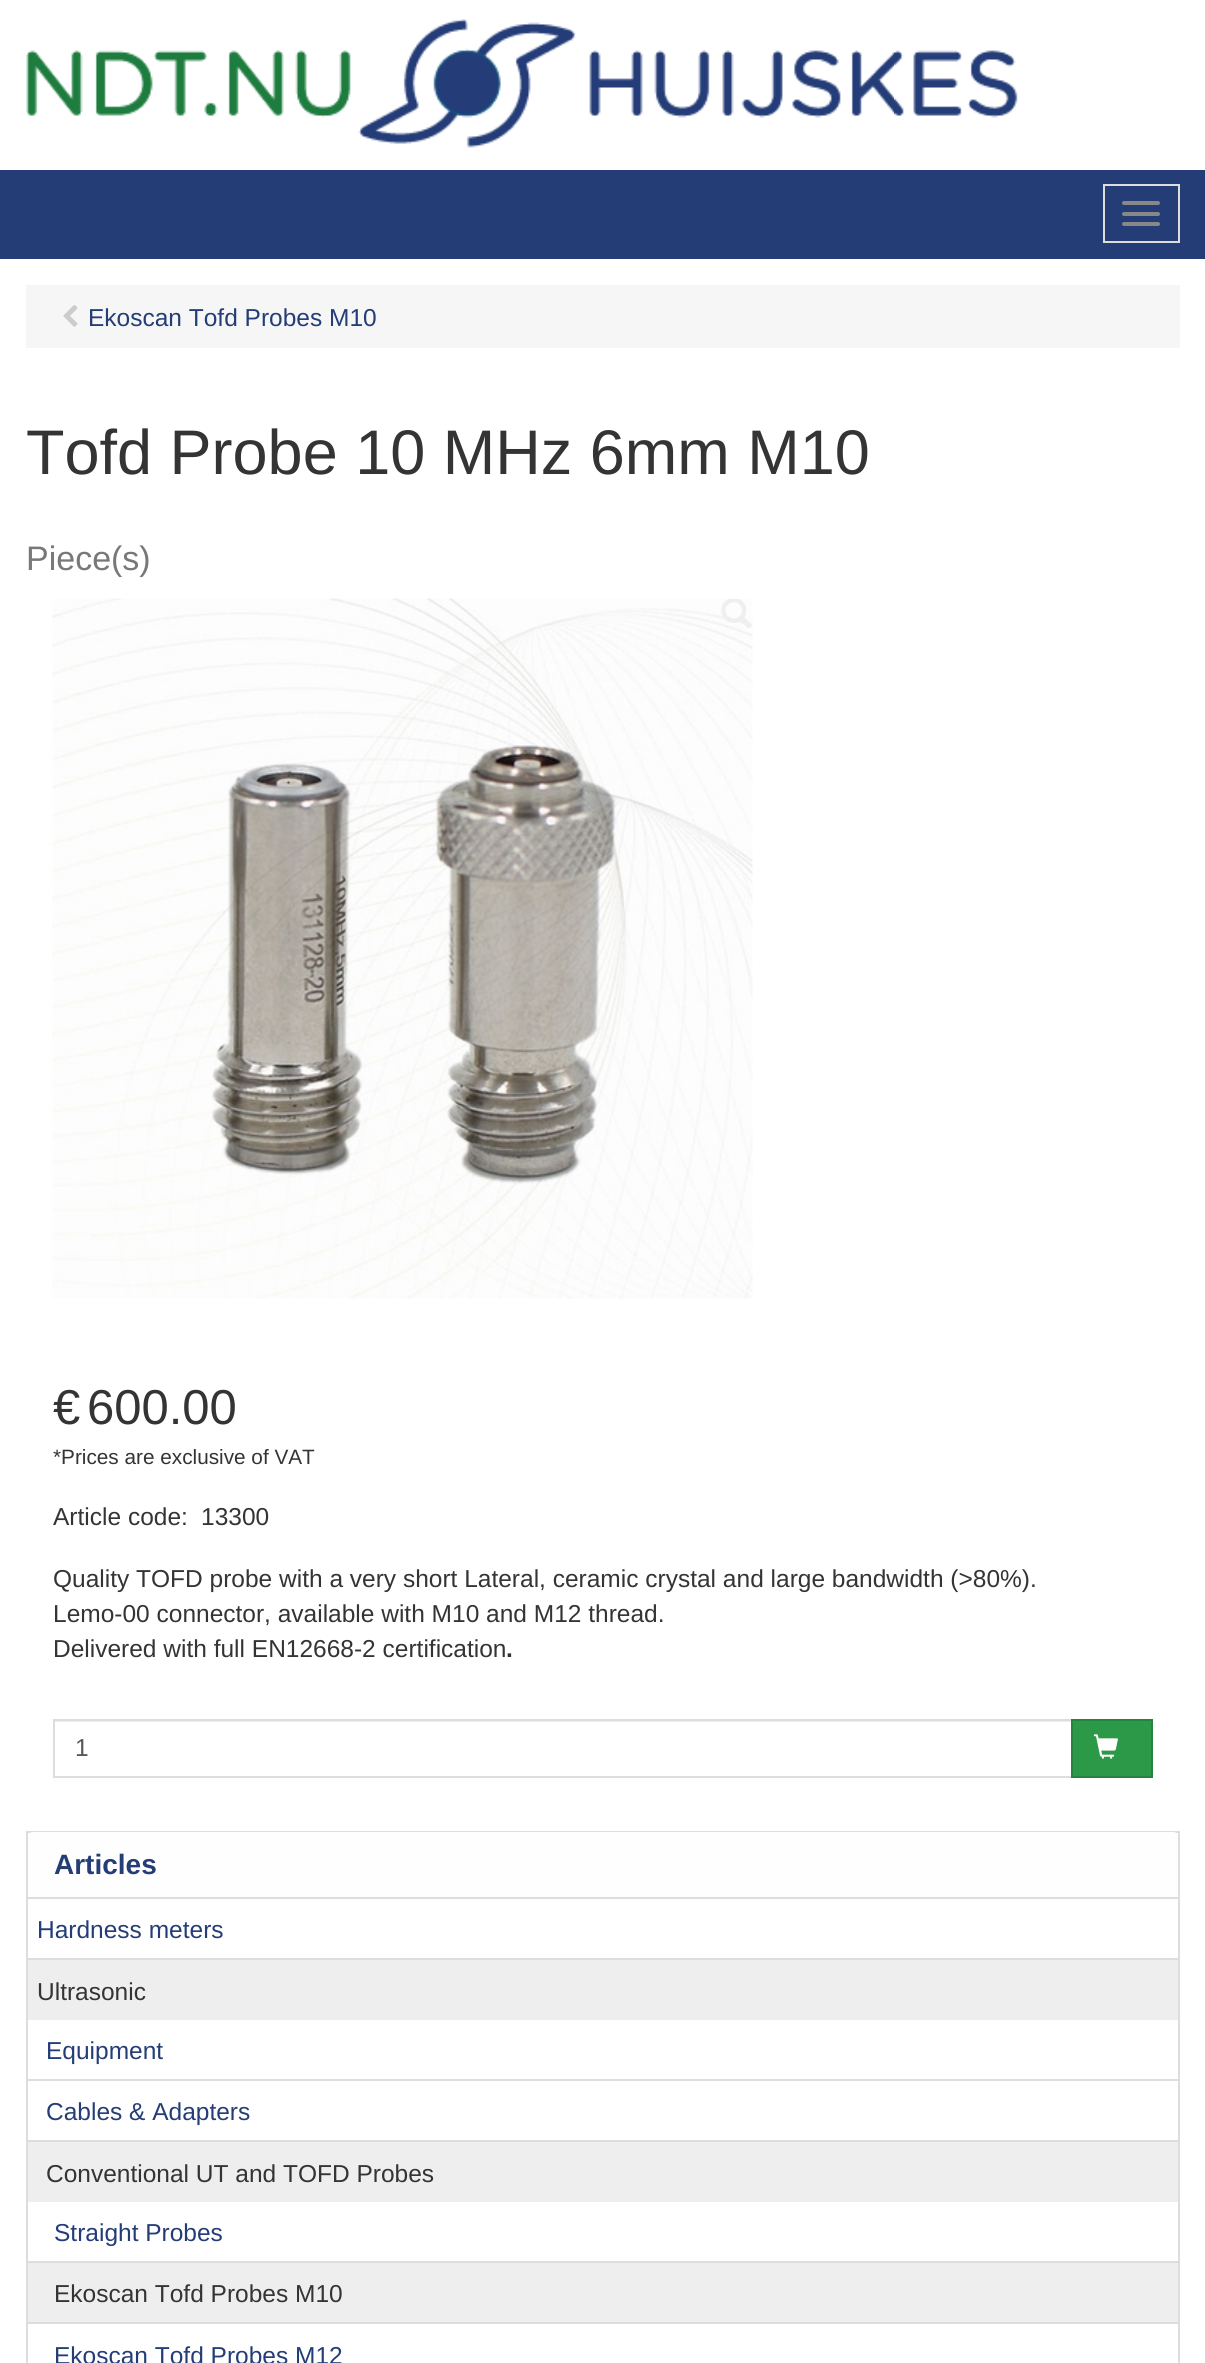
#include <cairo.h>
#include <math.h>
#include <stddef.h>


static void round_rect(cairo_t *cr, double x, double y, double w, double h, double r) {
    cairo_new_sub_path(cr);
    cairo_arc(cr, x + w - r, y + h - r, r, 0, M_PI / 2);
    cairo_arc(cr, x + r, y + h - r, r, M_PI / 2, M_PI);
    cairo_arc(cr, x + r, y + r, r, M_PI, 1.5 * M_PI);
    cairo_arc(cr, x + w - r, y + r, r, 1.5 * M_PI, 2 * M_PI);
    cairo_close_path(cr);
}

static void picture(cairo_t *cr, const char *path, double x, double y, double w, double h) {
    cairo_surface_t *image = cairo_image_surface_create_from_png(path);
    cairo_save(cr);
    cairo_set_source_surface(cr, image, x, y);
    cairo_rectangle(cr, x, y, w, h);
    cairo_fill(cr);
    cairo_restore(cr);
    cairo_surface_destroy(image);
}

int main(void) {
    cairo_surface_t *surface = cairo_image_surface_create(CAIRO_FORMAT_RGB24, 1205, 2363);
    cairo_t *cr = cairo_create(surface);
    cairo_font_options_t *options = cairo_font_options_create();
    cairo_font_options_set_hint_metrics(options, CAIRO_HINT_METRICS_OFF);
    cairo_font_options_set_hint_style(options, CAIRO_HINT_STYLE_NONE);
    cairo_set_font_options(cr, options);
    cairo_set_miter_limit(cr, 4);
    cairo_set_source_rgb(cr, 1, 1, 1);
    cairo_paint(cr);
    picture(cr, "img1.png", 26, 19, 992, 129);
    cairo_set_source_rgb(cr, 0.141, 0.239, 0.467);
    cairo_rectangle(cr, 0, 170, 1205, 89);
    cairo_fill(cr);
    cairo_rectangle(cr, 1104, 185, 75, 57);
    cairo_set_source_rgb(cr, 0.867, 0.867, 0.867);
    cairo_stroke(cr);
    cairo_set_source_rgb(cr, 0.533, 0.533, 0.533);
    round_rect(cr, 1122, 201, 38, 4, 2);
    cairo_fill(cr);
    round_rect(cr, 1122, 212, 38, 4, 2);
    cairo_fill(cr);
    round_rect(cr, 1122, 222, 38, 4, 2);
    cairo_fill(cr);
    cairo_set_source_rgb(cr, 0.961, 0.961, 0.961);
    cairo_rectangle(cr, 26, 285, 1154, 63);
    cairo_fill(cr);
    picture(cr, "img2.png", 63, 305, 15, 22);
    cairo_select_font_face(cr, "Liberation Sans", CAIRO_FONT_SLANT_NORMAL, CAIRO_FONT_WEIGHT_NORMAL);
    cairo_set_font_size(cr, 24.5);
    cairo_set_source_rgb(cr, 0.141, 0.239, 0.467);
    cairo_move_to(cr, 88, 326);
    cairo_show_text(cr, "Ekoscan Tofd Probes M10");
    cairo_set_font_size(cr, 63);
    cairo_set_source_rgb(cr, 0.204, 0.204, 0.204);
    cairo_move_to(cr, 26, 474);
    cairo_show_text(cr, "Tofd Probe 10 MHz 6mm M10");
    cairo_set_font_size(cr, 34);
    cairo_set_source_rgb(cr, 0.471, 0.471, 0.471);
    cairo_move_to(cr, 26, 570);
    cairo_show_text(cr, "Piece(s)");
    picture(cr, "img3.png", 52, 598, 701, 701);
    picture(cr, "img4.png", 721, 599, 31, 30);
    cairo_set_font_size(cr, 49);
    cairo_set_source_rgb(cr, 0.204, 0.204, 0.204);
    cairo_move_to(cr, 53, 1424);
    cairo_show_text(cr, "€");
    cairo_move_to(cr, 87, 1424);
    cairo_show_text(cr, "600.00");
    cairo_set_font_size(cr, 20.75);
    cairo_move_to(cr, 53, 1464);
    cairo_show_text(cr, "*Prices are exclusive of VAT");
    cairo_set_font_size(cr, 24.5);
    cairo_move_to(cr, 53, 1525);
    cairo_show_text(cr, "Article code:");
    cairo_move_to(cr, 201, 1525);
    cairo_show_text(cr, "13300");
    cairo_move_to(cr, 53, 1587);
    cairo_show_text(cr, "Quality TOFD probe with a very short Lateral, ceramic crystal and large bandwidth (>80%).");
    cairo_move_to(cr, 53, 1622);
    cairo_show_text(cr, "Lemo-00 connector, available with M10 and M12 thread.");
    cairo_move_to(cr, 53, 1657);
    cairo_show_text(cr, "Delivered with full EN12668-2 certification");
    cairo_select_font_face(cr, "Liberation Sans", CAIRO_FONT_SLANT_NORMAL, CAIRO_FONT_WEIGHT_BOLD);
    cairo_move_to(cr, 506, 1657);
    cairo_show_text(cr, ".");
    cairo_set_source_rgb(cr, 0.925, 0.925, 0.925);
    cairo_rectangle(cr, 54, 1721, 1017, 1);
    cairo_fill(cr);
    cairo_rectangle(cr, 54, 1720, 1018, 57);
    cairo_set_source_rgb(cr, 0.867, 0.867, 0.867);
    cairo_stroke(cr);
    cairo_select_font_face(cr, "Liberation Sans", CAIRO_FONT_SLANT_NORMAL, CAIRO_FONT_WEIGHT_NORMAL);
    cairo_set_source_rgb(cr, 0.337, 0.337, 0.337);
    cairo_move_to(cr, 75, 1756);
    cairo_show_text(cr, "1");
    cairo_set_source_rgb(cr, 0.169, 0.6, 0.278);
    cairo_rectangle(cr, 1072, 1720, 80, 57);
    cairo_fill_preserve(cr);
    cairo_set_source_rgb(cr, 0.145, 0.522, 0.243);
    cairo_stroke(cr);
    picture(cr, "img5.png", 1093, 1734, 25, 25);
    cairo_rectangle(cr, 27, 1832, 1152, 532);
    cairo_set_source_rgb(cr, 0.867, 0.867, 0.867);
    cairo_stroke(cr);
    cairo_set_source_rgb(cr, 0.996, 0.996, 0.996);
    cairo_new_path(cr);
    cairo_move_to(cr, 33, 1832);
    cairo_line_to(cr, 1173, 1832);
    cairo_curve_to(cr, 1176, 1832, 1178, 1834, 1178, 1837);
    cairo_line_to(cr, 1178, 1899);
    cairo_line_to(cr, 28, 1899);
    cairo_line_to(cr, 28, 1837);
    cairo_curve_to(cr, 28, 1834, 30, 1832, 33, 1832);
    cairo_close_path(cr);
    cairo_fill(cr);
    cairo_set_source_rgb(cr, 0.867, 0.867, 0.867);
    cairo_rectangle(cr, 28, 1897, 1150, 2);
    cairo_fill(cr);
    cairo_select_font_face(cr, "Liberation Sans", CAIRO_FONT_SLANT_NORMAL, CAIRO_FONT_WEIGHT_BOLD);
    cairo_set_font_size(cr, 28);
    cairo_set_source_rgb(cr, 0.141, 0.239, 0.467);
    cairo_move_to(cr, 54, 1874);
    cairo_show_text(cr, "Articles");
    cairo_select_font_face(cr, "Liberation Sans", CAIRO_FONT_SLANT_NORMAL, CAIRO_FONT_WEIGHT_NORMAL);
    cairo_set_font_size(cr, 24.5);
    cairo_move_to(cr, 37, 1938);
    cairo_show_text(cr, "Hardness meters");
    cairo_set_source_rgb(cr, 0.933, 0.933, 0.933);
    cairo_rectangle(cr, 28, 1960, 1150, 60);
    cairo_fill(cr);
    cairo_set_source_rgb(cr, 0.867, 0.867, 0.867);
    cairo_rectangle(cr, 28, 1958, 1150, 2);
    cairo_fill(cr);
    cairo_set_source_rgb(cr, 0.204, 0.204, 0.204);
    cairo_move_to(cr, 37, 2000);
    cairo_show_text(cr, "Ultrasonic");
    cairo_set_source_rgb(cr, 0.141, 0.239, 0.467);
    cairo_move_to(cr, 46, 2059);
    cairo_show_text(cr, "Equipment");
    cairo_set_source_rgb(cr, 0.867, 0.867, 0.867);
    cairo_rectangle(cr, 28, 2079, 1150, 2);
    cairo_fill(cr);
    cairo_set_source_rgb(cr, 0.141, 0.239, 0.467);
    cairo_move_to(cr, 46, 2120);
    cairo_show_text(cr, "Cables & Adapters");
    cairo_set_source_rgb(cr, 0.933, 0.933, 0.933);
    cairo_rectangle(cr, 28, 2142, 1150, 60);
    cairo_fill(cr);
    cairo_set_source_rgb(cr, 0.867, 0.867, 0.867);
    cairo_rectangle(cr, 28, 2140, 1150, 2);
    cairo_fill(cr);
    cairo_set_source_rgb(cr, 0.204, 0.204, 0.204);
    cairo_move_to(cr, 46, 2182);
    cairo_show_text(cr, "Conventional UT and TOFD Probes");
    cairo_set_source_rgb(cr, 0.141, 0.239, 0.467);
    cairo_move_to(cr, 54, 2241);
    cairo_show_text(cr, "Straight Probes");
    cairo_set_source_rgb(cr, 0.933, 0.933, 0.933);
    cairo_rectangle(cr, 28, 2263, 1150, 59);
    cairo_fill(cr);
    cairo_set_source_rgb(cr, 0.867, 0.867, 0.867);
    cairo_rectangle(cr, 28, 2261, 1150, 2);
    cairo_fill(cr);
    cairo_set_source_rgb(cr, 0.204, 0.204, 0.204);
    cairo_move_to(cr, 54, 2302);
    cairo_show_text(cr, "Ekoscan Tofd Probes M10");
    cairo_set_source_rgb(cr, 0.867, 0.867, 0.867);
    cairo_rectangle(cr, 28, 2322, 1150, 2);
    cairo_fill(cr);
    cairo_set_source_rgb(cr, 0.141, 0.239, 0.467);
    cairo_move_to(cr, 54, 2364);
    cairo_show_text(cr, "Ekoscan Tofd Probes M12");
    cairo_surface_write_to_png(surface, "page.png");
    cairo_font_options_destroy(options);
    cairo_destroy(cr);
    cairo_surface_destroy(surface);
    return 0;
}
